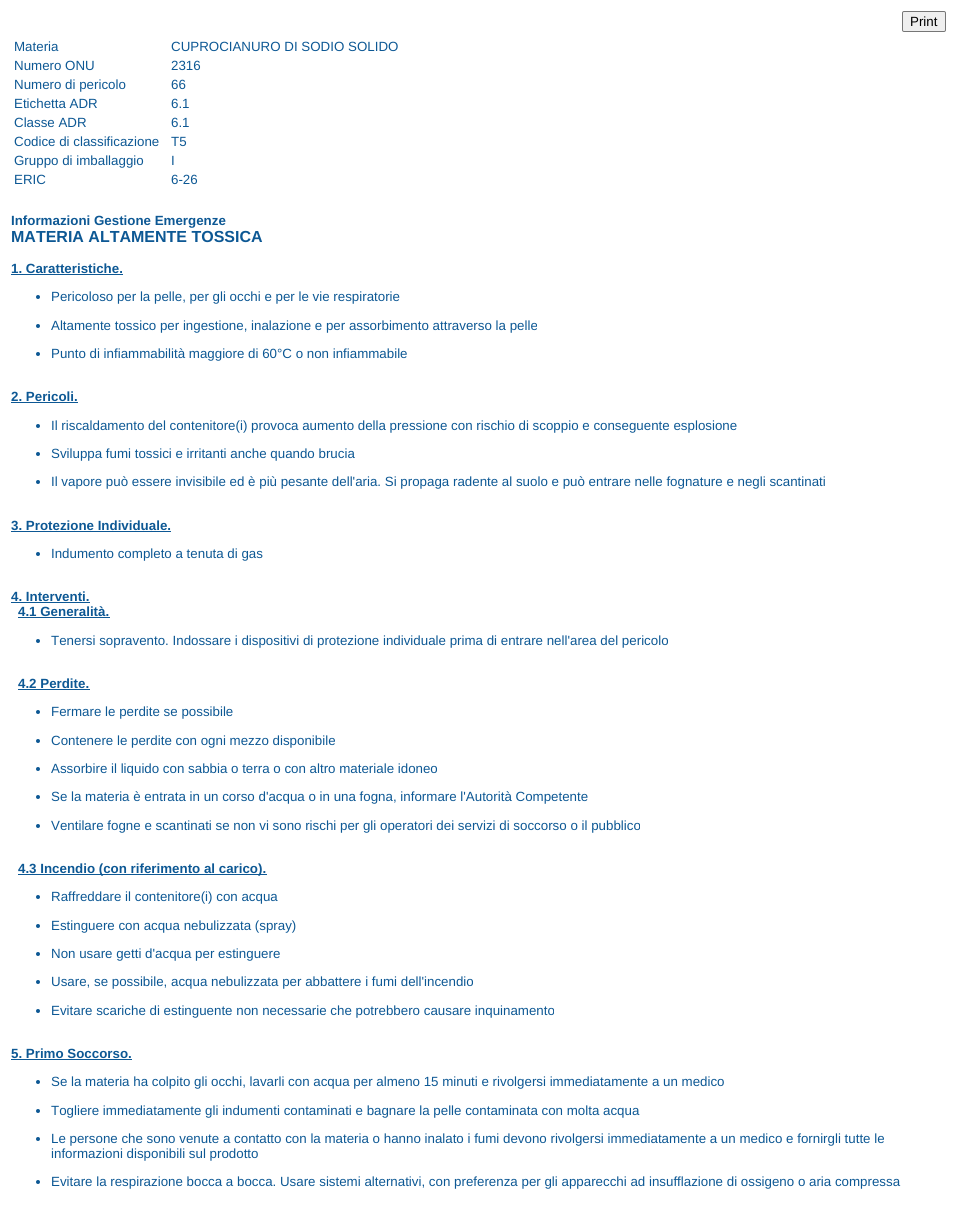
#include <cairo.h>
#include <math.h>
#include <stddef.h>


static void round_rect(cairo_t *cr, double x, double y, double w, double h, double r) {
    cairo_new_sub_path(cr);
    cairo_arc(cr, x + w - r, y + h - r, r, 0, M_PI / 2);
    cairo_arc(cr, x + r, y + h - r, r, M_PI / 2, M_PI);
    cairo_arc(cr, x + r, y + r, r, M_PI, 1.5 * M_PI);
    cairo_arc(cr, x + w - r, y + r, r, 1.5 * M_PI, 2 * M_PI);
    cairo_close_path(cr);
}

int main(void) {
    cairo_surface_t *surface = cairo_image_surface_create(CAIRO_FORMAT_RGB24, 966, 1226);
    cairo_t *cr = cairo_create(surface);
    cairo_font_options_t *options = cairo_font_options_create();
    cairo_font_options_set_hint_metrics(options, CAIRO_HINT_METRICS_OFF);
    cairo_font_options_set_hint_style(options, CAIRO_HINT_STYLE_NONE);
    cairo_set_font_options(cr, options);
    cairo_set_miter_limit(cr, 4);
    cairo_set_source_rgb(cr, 1, 1, 1);
    cairo_paint(cr);
    cairo_set_source_rgb(cr, 0.937, 0.937, 0.937);
    round_rect(cr, 902.5, 11.5, 43, 20, 1.5);
    cairo_fill_preserve(cr);
    cairo_set_source_rgb(cr, 0.463, 0.463, 0.463);
    cairo_set_line_width(cr, 1);
    cairo_stroke(cr);
    cairo_select_font_face(cr, "Liberation Sans", CAIRO_FONT_SLANT_NORMAL, CAIRO_FONT_WEIGHT_NORMAL);
    cairo_set_font_size(cr, 13.33);
    cairo_set_source_rgb(cr, 0, 0, 0);
    cairo_move_to(cr, 910, 26);
    cairo_show_text(cr, "Print");
    cairo_set_source_rgb(cr, 0.051, 0.345, 0.58);
    cairo_move_to(cr, 14, 51);
    cairo_show_text(cr, "Materia");
    cairo_move_to(cr, 171, 51);
    cairo_show_text(cr, "CUPROCIANURO DI SODIO SOLIDO");
    cairo_move_to(cr, 14, 70);
    cairo_show_text(cr, "Numero ONU");
    cairo_move_to(cr, 171, 70);
    cairo_show_text(cr, "2316");
    cairo_move_to(cr, 14, 89);
    cairo_show_text(cr, "Numero di pericolo");
    cairo_move_to(cr, 171, 89);
    cairo_show_text(cr, "66");
    cairo_move_to(cr, 14, 108);
    cairo_show_text(cr, "Etichetta ADR");
    cairo_move_to(cr, 171, 108);
    cairo_show_text(cr, "6.1");
    cairo_move_to(cr, 14, 127);
    cairo_show_text(cr, "Classe ADR");
    cairo_move_to(cr, 171, 127);
    cairo_show_text(cr, "6.1");
    cairo_move_to(cr, 14, 146);
    cairo_show_text(cr, "Codice di classificazione");
    cairo_move_to(cr, 171, 146);
    cairo_show_text(cr, "T5");
    cairo_move_to(cr, 14, 165);
    cairo_show_text(cr, "Gruppo di imballaggio");
    cairo_move_to(cr, 171, 165);
    cairo_show_text(cr, "I");
    cairo_move_to(cr, 14, 184);
    cairo_show_text(cr, "ERIC");
    cairo_move_to(cr, 171, 184);
    cairo_show_text(cr, "6-26");
    cairo_select_font_face(cr, "Liberation Sans", CAIRO_FONT_SLANT_NORMAL, CAIRO_FONT_WEIGHT_BOLD);
    cairo_move_to(cr, 11, 225);
    cairo_show_text(cr, "Informazioni Gestione Emergenze");
    cairo_set_font_size(cr, 16);
    cairo_move_to(cr, 11, 242);
    cairo_show_text(cr, "MATERIA ALTAMENTE TOSSICA");
    cairo_set_font_size(cr, 13.33);
    cairo_move_to(cr, 11, 273);
    cairo_show_text(cr, "1. Caratteristiche.");
    cairo_rectangle(cr, 11, 274, 112, 1);
    cairo_fill(cr);
    cairo_arc(cr, 38, 297, 2, 0, 2 * M_PI);
    cairo_fill(cr);
    cairo_select_font_face(cr, "Liberation Sans", CAIRO_FONT_SLANT_NORMAL, CAIRO_FONT_WEIGHT_NORMAL);
    cairo_move_to(cr, 51, 301);
    cairo_show_text(cr, "Pericoloso per la pelle, per gli occhi e per le vie respiratorie");
    cairo_new_path(cr);
    cairo_arc(cr, 38, 326, 2, 0, 2 * M_PI);
    cairo_fill(cr);
    cairo_move_to(cr, 51, 330);
    cairo_show_text(cr, "Altamente tossico per ingestione, inalazione e per assorbimento attraverso la pelle");
    cairo_new_path(cr);
    cairo_arc(cr, 38, 354, 2, 0, 2 * M_PI);
    cairo_fill(cr);
    cairo_move_to(cr, 51, 358);
    cairo_show_text(cr, "Punto di infiammabilità maggiore di 60°C o non infiammabile");
    cairo_select_font_face(cr, "Liberation Sans", CAIRO_FONT_SLANT_NORMAL, CAIRO_FONT_WEIGHT_BOLD);
    cairo_move_to(cr, 11, 401);
    cairo_show_text(cr, "2. Pericoli.");
    cairo_rectangle(cr, 11, 402, 67, 1);
    cairo_fill(cr);
    cairo_arc(cr, 38, 426, 2, 0, 2 * M_PI);
    cairo_fill(cr);
    cairo_select_font_face(cr, "Liberation Sans", CAIRO_FONT_SLANT_NORMAL, CAIRO_FONT_WEIGHT_NORMAL);
    cairo_move_to(cr, 51, 430);
    cairo_show_text(cr, "Il riscaldamento del contenitore(i) provoca aumento della pressione con rischio di scoppio e conseguente esplosione");
    cairo_new_path(cr);
    cairo_arc(cr, 38, 454, 2, 0, 2 * M_PI);
    cairo_fill(cr);
    cairo_move_to(cr, 51, 458);
    cairo_show_text(cr, "Sviluppa fumi tossici e irritanti anche quando brucia");
    cairo_new_path(cr);
    cairo_arc(cr, 38, 482, 2, 0, 2 * M_PI);
    cairo_fill(cr);
    cairo_move_to(cr, 51, 486);
    cairo_show_text(cr, "Il vapore può essere invisibile ed è più pesante dell'aria. Si propaga radente al suolo e può entrare nelle fognature e negli scantinati");
    cairo_select_font_face(cr, "Liberation Sans", CAIRO_FONT_SLANT_NORMAL, CAIRO_FONT_WEIGHT_BOLD);
    cairo_move_to(cr, 11, 530);
    cairo_show_text(cr, "3. Protezione Individuale.");
    cairo_rectangle(cr, 11, 531, 160, 1);
    cairo_fill(cr);
    cairo_arc(cr, 38, 554, 2, 0, 2 * M_PI);
    cairo_fill(cr);
    cairo_select_font_face(cr, "Liberation Sans", CAIRO_FONT_SLANT_NORMAL, CAIRO_FONT_WEIGHT_NORMAL);
    cairo_move_to(cr, 51, 558);
    cairo_show_text(cr, "Indumento completo a tenuta di gas");
    cairo_select_font_face(cr, "Liberation Sans", CAIRO_FONT_SLANT_NORMAL, CAIRO_FONT_WEIGHT_BOLD);
    cairo_move_to(cr, 11, 601);
    cairo_show_text(cr, "4. Interventi.");
    cairo_rectangle(cr, 11, 602, 79, 1);
    cairo_fill(cr);
    cairo_move_to(cr, 18, 616);
    cairo_show_text(cr, "4.1 Generalità.");
    cairo_rectangle(cr, 18, 617, 92, 1);
    cairo_fill(cr);
    cairo_arc(cr, 38, 641, 2, 0, 2 * M_PI);
    cairo_fill(cr);
    cairo_select_font_face(cr, "Liberation Sans", CAIRO_FONT_SLANT_NORMAL, CAIRO_FONT_WEIGHT_NORMAL);
    cairo_move_to(cr, 51, 645);
    cairo_show_text(cr, "Tenersi sopravento. Indossare i dispositivi di protezione individuale prima di entrare nell'area del pericolo");
    cairo_select_font_face(cr, "Liberation Sans", CAIRO_FONT_SLANT_NORMAL, CAIRO_FONT_WEIGHT_BOLD);
    cairo_move_to(cr, 18, 688);
    cairo_show_text(cr, "4.2 Perdite.");
    cairo_rectangle(cr, 18, 689, 72, 1);
    cairo_fill(cr);
    cairo_arc(cr, 38, 712, 2, 0, 2 * M_PI);
    cairo_fill(cr);
    cairo_select_font_face(cr, "Liberation Sans", CAIRO_FONT_SLANT_NORMAL, CAIRO_FONT_WEIGHT_NORMAL);
    cairo_move_to(cr, 51, 716);
    cairo_show_text(cr, "Fermare le perdite se possibile");
    cairo_new_path(cr);
    cairo_arc(cr, 38, 741, 2, 0, 2 * M_PI);
    cairo_fill(cr);
    cairo_move_to(cr, 51, 745);
    cairo_show_text(cr, "Contenere le perdite con ogni mezzo disponibile");
    cairo_new_path(cr);
    cairo_arc(cr, 38, 769, 2, 0, 2 * M_PI);
    cairo_fill(cr);
    cairo_move_to(cr, 51, 773);
    cairo_show_text(cr, "Assorbire il liquido con sabbia o terra o con altro materiale idoneo");
    cairo_new_path(cr);
    cairo_arc(cr, 38, 797, 2, 0, 2 * M_PI);
    cairo_fill(cr);
    cairo_move_to(cr, 51, 801);
    cairo_show_text(cr, "Se la materia è entrata in un corso d'acqua o in una fogna, informare l'Autorità Competente");
    cairo_new_path(cr);
    cairo_arc(cr, 38, 826, 2, 0, 2 * M_PI);
    cairo_fill(cr);
    cairo_move_to(cr, 51, 830);
    cairo_show_text(cr, "Ventilare fogne e scantinati se non vi sono rischi per gli operatori dei servizi di soccorso o il pubblico");
    cairo_rectangle(cr, 18, 874, 249, 1);
    cairo_fill(cr);
    cairo_select_font_face(cr, "Liberation Sans", CAIRO_FONT_SLANT_NORMAL, CAIRO_FONT_WEIGHT_BOLD);
    cairo_move_to(cr, 18, 873);
    cairo_show_text(cr, "4.3 Incendio (con riferimento al carico).");
    cairo_new_path(cr);
    cairo_arc(cr, 38, 897, 2, 0, 2 * M_PI);
    cairo_fill(cr);
    cairo_select_font_face(cr, "Liberation Sans", CAIRO_FONT_SLANT_NORMAL, CAIRO_FONT_WEIGHT_NORMAL);
    cairo_move_to(cr, 51, 901);
    cairo_show_text(cr, "Raffreddare il contenitore(i) con acqua");
    cairo_new_path(cr);
    cairo_arc(cr, 38, 926, 2, 0, 2 * M_PI);
    cairo_fill(cr);
    cairo_move_to(cr, 51, 930);
    cairo_show_text(cr, "Estinguere con acqua nebulizzata (spray)");
    cairo_new_path(cr);
    cairo_arc(cr, 38, 954, 2, 0, 2 * M_PI);
    cairo_fill(cr);
    cairo_move_to(cr, 51, 958);
    cairo_show_text(cr, "Non usare getti d'acqua per estinguere");
    cairo_new_path(cr);
    cairo_arc(cr, 38, 982, 2, 0, 2 * M_PI);
    cairo_fill(cr);
    cairo_move_to(cr, 51, 986);
    cairo_show_text(cr, "Usare, se possibile, acqua nebulizzata per abbattere i fumi dell'incendio");
    cairo_new_path(cr);
    cairo_arc(cr, 38, 1011, 2, 0, 2 * M_PI);
    cairo_fill(cr);
    cairo_move_to(cr, 51, 1015);
    cairo_show_text(cr, "Evitare scariche di estinguente non necessarie che potrebbero causare inquinamento");
    cairo_select_font_face(cr, "Liberation Sans", CAIRO_FONT_SLANT_NORMAL, CAIRO_FONT_WEIGHT_BOLD);
    cairo_move_to(cr, 11, 1058);
    cairo_show_text(cr, "5. Primo Soccorso.");
    cairo_rectangle(cr, 11, 1059, 121, 1);
    cairo_fill(cr);
    cairo_arc(cr, 38, 1082, 2, 0, 2 * M_PI);
    cairo_fill(cr);
    cairo_select_font_face(cr, "Liberation Sans", CAIRO_FONT_SLANT_NORMAL, CAIRO_FONT_WEIGHT_NORMAL);
    cairo_move_to(cr, 51, 1086);
    cairo_show_text(cr, "Se la materia ha colpito gli occhi, lavarli con acqua per almeno 15 minuti e rivolgersi immediatamente a un medico");
    cairo_new_path(cr);
    cairo_arc(cr, 38, 1111, 2, 0, 2 * M_PI);
    cairo_fill(cr);
    cairo_move_to(cr, 51, 1115);
    cairo_show_text(cr, "Togliere immediatamente gli indumenti contaminati e bagnare la pelle contaminata con molta acqua");
    cairo_new_path(cr);
    cairo_arc(cr, 38, 1139, 2, 0, 2 * M_PI);
    cairo_fill(cr);
    cairo_move_to(cr, 51, 1143);
    cairo_show_text(cr, "Le persone che sono venute a contatto con la materia o hanno inalato i fumi devono rivolgersi immediatamente a un medico e fornirgli tutte le");
    cairo_move_to(cr, 51, 1158);
    cairo_show_text(cr, "informazioni disponibili sul prodotto");
    cairo_new_path(cr);
    cairo_arc(cr, 38, 1182, 2, 0, 2 * M_PI);
    cairo_fill(cr);
    cairo_move_to(cr, 51, 1186);
    cairo_show_text(cr, "Evitare la respirazione bocca a bocca. Usare sistemi alternativi, con preferenza per gli apparecchi ad insufflazione di ossigeno o aria compressa");
    cairo_surface_write_to_png(surface, "page.png");
    cairo_font_options_destroy(options);
    cairo_destroy(cr);
    cairo_surface_destroy(surface);
    return 0;
}
